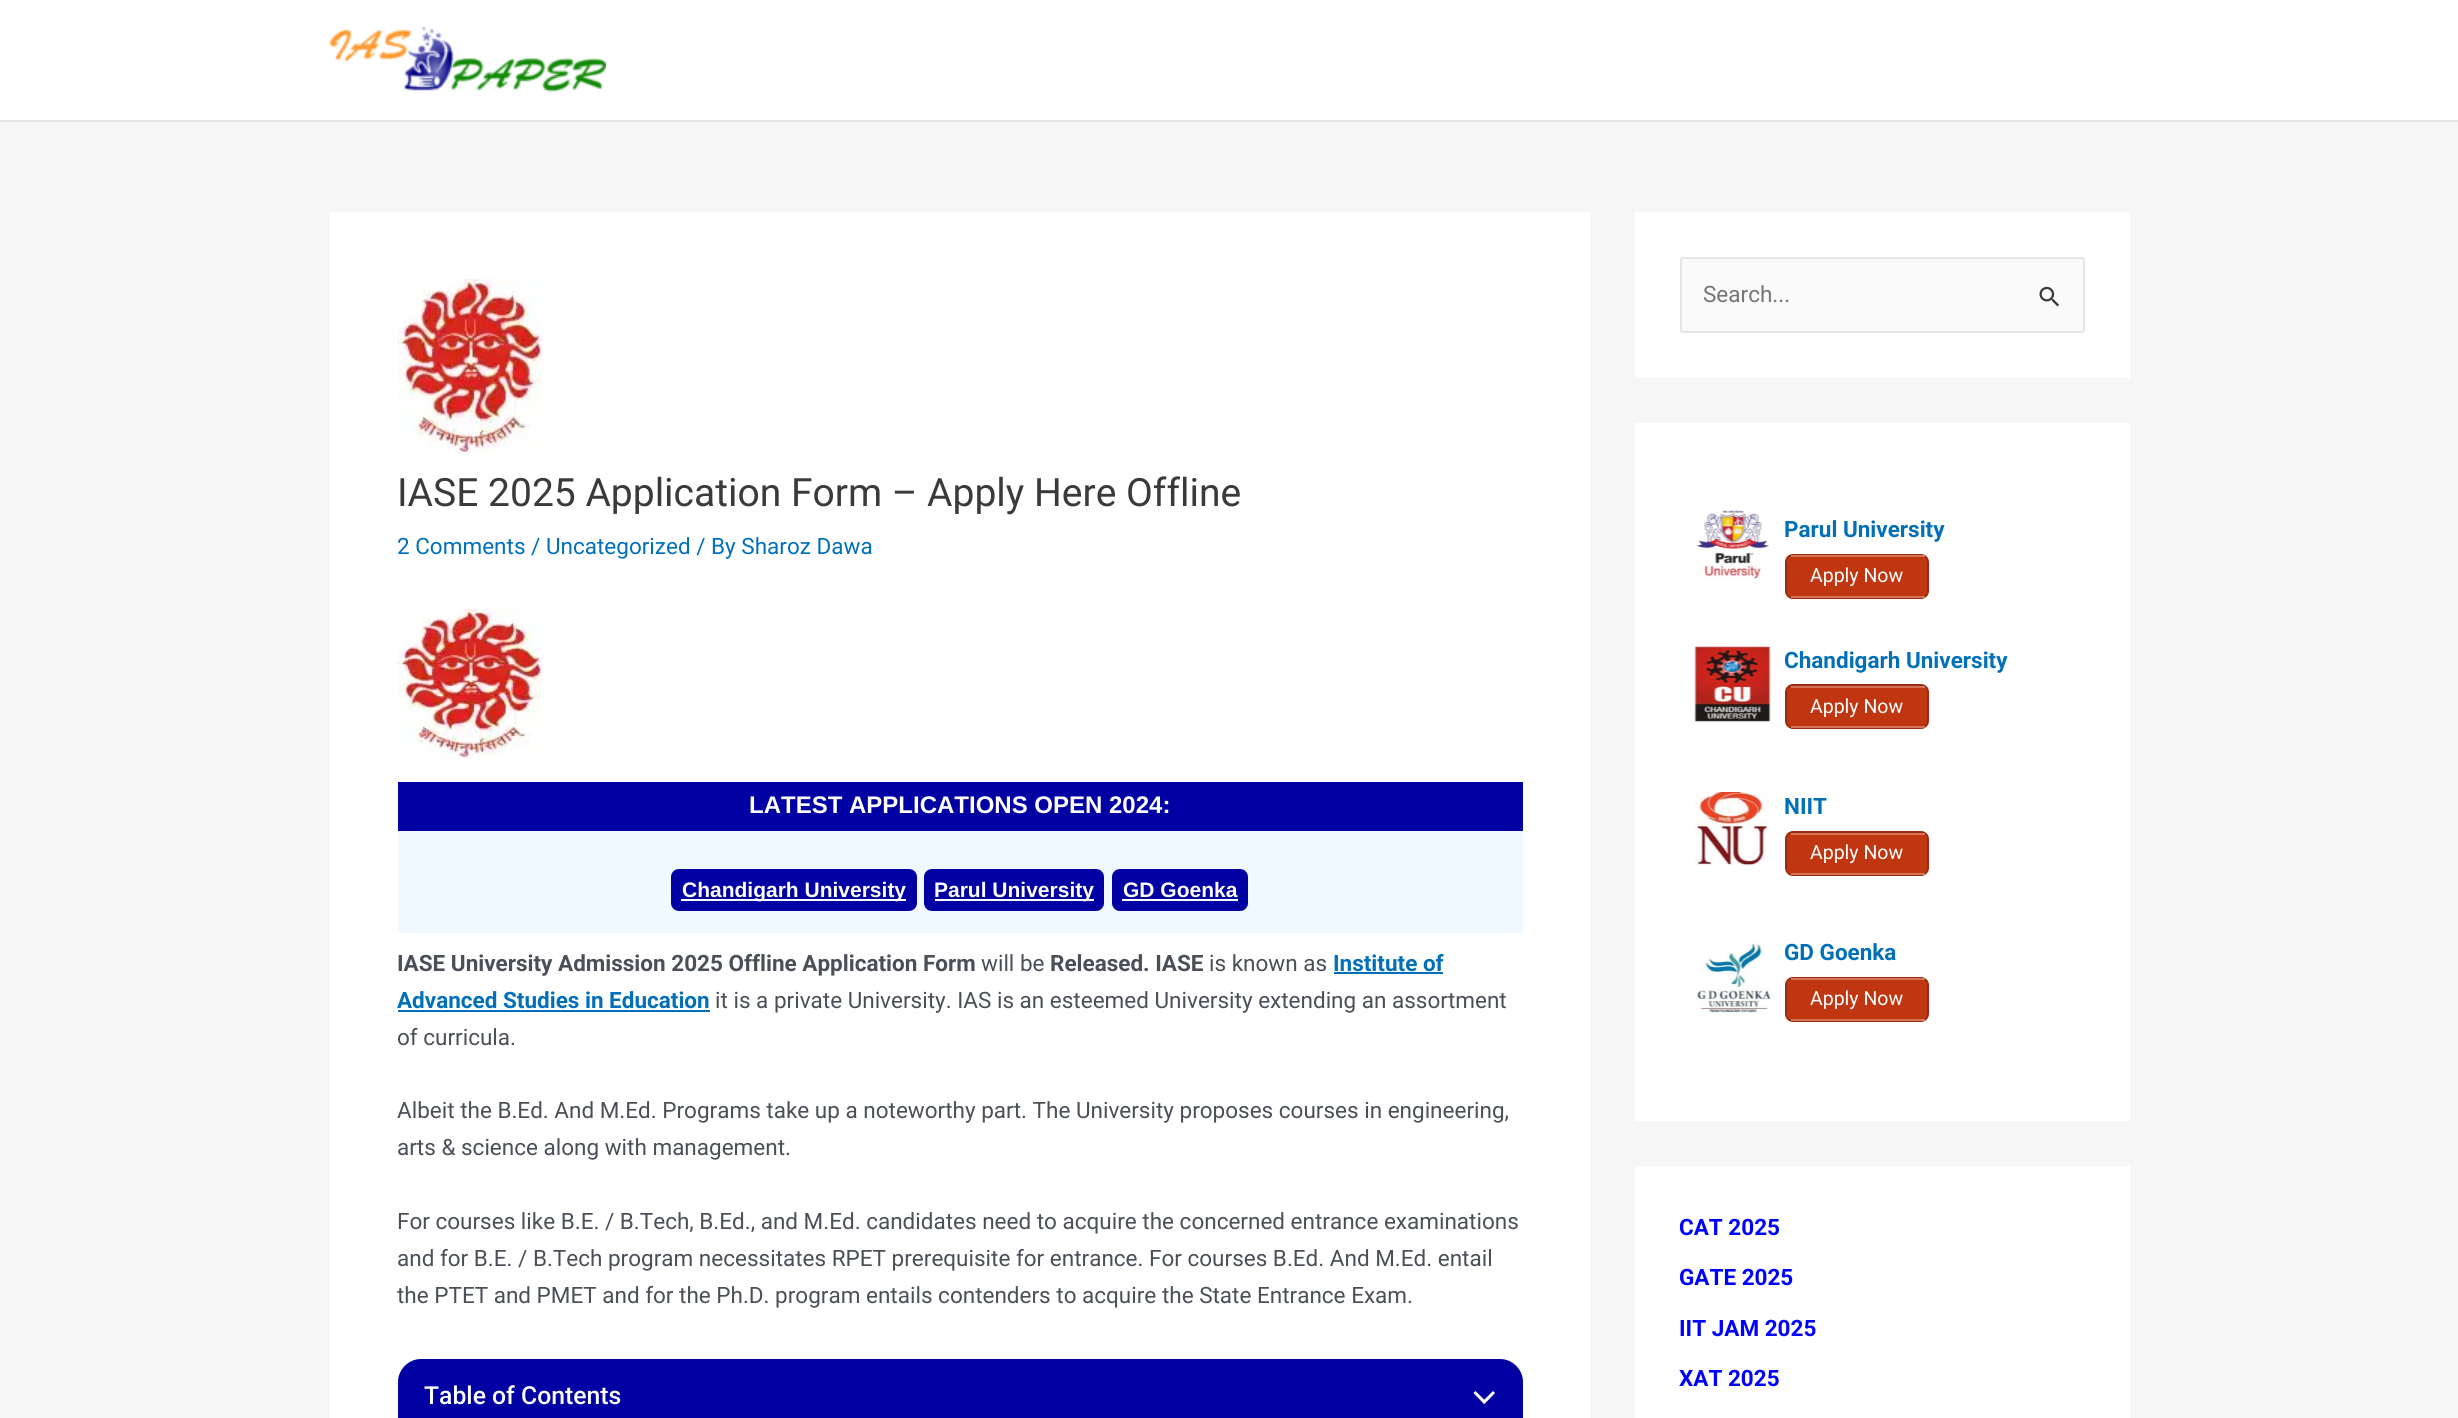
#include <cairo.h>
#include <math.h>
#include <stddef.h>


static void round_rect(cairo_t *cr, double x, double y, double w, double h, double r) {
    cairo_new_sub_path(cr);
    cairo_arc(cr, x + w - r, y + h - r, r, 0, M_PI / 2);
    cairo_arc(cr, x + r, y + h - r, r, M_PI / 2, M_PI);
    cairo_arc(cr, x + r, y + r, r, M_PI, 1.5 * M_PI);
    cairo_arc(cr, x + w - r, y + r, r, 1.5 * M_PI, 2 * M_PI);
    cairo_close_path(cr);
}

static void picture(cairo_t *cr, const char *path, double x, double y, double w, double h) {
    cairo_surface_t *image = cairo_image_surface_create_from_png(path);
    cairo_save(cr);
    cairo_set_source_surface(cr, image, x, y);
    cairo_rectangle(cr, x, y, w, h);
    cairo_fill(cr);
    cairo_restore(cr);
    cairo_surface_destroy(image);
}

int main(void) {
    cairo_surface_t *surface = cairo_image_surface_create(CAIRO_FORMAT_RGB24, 2458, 1418);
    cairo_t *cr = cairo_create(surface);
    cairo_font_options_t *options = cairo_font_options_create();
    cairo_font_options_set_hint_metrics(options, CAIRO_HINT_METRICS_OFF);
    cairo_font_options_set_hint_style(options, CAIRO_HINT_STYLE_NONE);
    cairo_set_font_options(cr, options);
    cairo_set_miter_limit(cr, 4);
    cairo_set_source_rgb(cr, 0.961, 0.961, 0.961);
    cairo_paint(cr);
    cairo_set_source_rgb(cr, 1, 1, 1);
    cairo_rectangle(cr, 0, 0, 2458, 120);
    cairo_fill(cr);
    cairo_set_source_rgb(cr, 0.898, 0.898, 0.898);
    cairo_rectangle(cr, 0, 120, 2458, 2);
    cairo_fill(cr);
    picture(cr, "img1.png", 329, 27, 277, 65);
    cairo_set_source_rgb(cr, 1, 1, 1);
    cairo_rectangle(cr, 330, 212, 1260, 1206);
    cairo_fill(cr);
    picture(cr, "img2.png", 397, 279, 150, 175);
    cairo_select_font_face(cr, "Roboto", CAIRO_FONT_SLANT_NORMAL, CAIRO_FONT_WEIGHT_NORMAL);
    cairo_set_font_size(cr, 39);
    cairo_set_source_rgb(cr, 0.227, 0.227, 0.227);
    cairo_move_to(cr, 397, 506);
    cairo_show_text(cr, "IASE 2025 Application Form – Apply Here Offline");
    cairo_set_font_size(cr, 22.5);
    cairo_set_source_rgb(cr, 0.004, 0.439, 0.725);
    cairo_move_to(cr, 397, 554);
    cairo_show_text(cr, "2 Comments / Uncategorized / By Sharoz Dawa");
    picture(cr, "img3.png", 397, 609, 150, 150);
    cairo_set_source_rgb(cr, 0.941, 0.973, 1);
    cairo_rectangle(cr, 398, 831, 1125, 102);
    cairo_fill(cr);
    cairo_set_source_rgb(cr, 0, 0, 0.639);
    cairo_rectangle(cr, 398, 782, 1125, 49);
    cairo_fill(cr);
    cairo_select_font_face(cr, "Liberation Sans", CAIRO_FONT_SLANT_NORMAL, CAIRO_FONT_WEIGHT_BOLD);
    cairo_set_font_size(cr, 24);
    cairo_set_source_rgb(cr, 1, 1, 1);
    cairo_move_to(cr, 749, 813);
    cairo_show_text(cr, "LATEST APPLICATIONS OPEN 2024:");
    cairo_set_source_rgb(cr, 0, 0, 0.639);
    round_rect(cr, 671, 869, 246, 42, 8);
    cairo_fill(cr);
    cairo_set_source_rgb(cr, 1, 1, 1);
    cairo_rectangle(cr, 681, 899, 225, 2);
    cairo_fill(cr);
    cairo_set_font_size(cr, 21);
    cairo_move_to(cr, 682, 897);
    cairo_show_text(cr, "Chandigarh University");
    cairo_set_source_rgb(cr, 0, 0, 0.639);
    round_rect(cr, 924, 869, 180, 42, 8);
    cairo_fill(cr);
    cairo_set_source_rgb(cr, 1, 1, 1);
    cairo_rectangle(cr, 935, 899, 159, 2);
    cairo_fill(cr);
    cairo_move_to(cr, 934, 897);
    cairo_show_text(cr, "Parul University");
    cairo_set_source_rgb(cr, 0, 0, 0.639);
    round_rect(cr, 1112, 869, 136, 42, 8);
    cairo_fill(cr);
    cairo_set_source_rgb(cr, 1, 1, 1);
    cairo_move_to(cr, 1123, 897);
    cairo_show_text(cr, "GD Goenka");
    cairo_rectangle(cr, 1122, 899, 116, 2);
    cairo_fill(cr);
    cairo_select_font_face(cr, "Roboto", CAIRO_FONT_SLANT_NORMAL, CAIRO_FONT_WEIGHT_BOLD);
    cairo_set_font_size(cr, 22.5);
    cairo_set_source_rgb(cr, 0.294, 0.31, 0.345);
    cairo_move_to(cr, 397, 971);
    cairo_show_text(cr, "IASE University Admission 2025 Offline Application Form");
    cairo_select_font_face(cr, "Roboto", CAIRO_FONT_SLANT_NORMAL, CAIRO_FONT_WEIGHT_NORMAL);
    cairo_move_to(cr, 981, 971);
    cairo_show_text(cr, "will be");
    cairo_select_font_face(cr, "Roboto", CAIRO_FONT_SLANT_NORMAL, CAIRO_FONT_WEIGHT_BOLD);
    cairo_move_to(cr, 1050, 971);
    cairo_show_text(cr, "Released. IASE");
    cairo_select_font_face(cr, "Roboto", CAIRO_FONT_SLANT_NORMAL, CAIRO_FONT_WEIGHT_NORMAL);
    cairo_move_to(cr, 1209, 971);
    cairo_show_text(cr, "is known as");
    cairo_select_font_face(cr, "Roboto", CAIRO_FONT_SLANT_NORMAL, CAIRO_FONT_WEIGHT_BOLD);
    cairo_set_source_rgb(cr, 0.004, 0.439, 0.725);
    cairo_move_to(cr, 1333, 971);
    cairo_show_text(cr, "Institute of");
    cairo_rectangle(cr, 1334, 972, 109, 2);
    cairo_fill(cr);
    cairo_move_to(cr, 397, 1008);
    cairo_show_text(cr, "Advanced Studies in Education");
    cairo_rectangle(cr, 398, 1010, 312, 2);
    cairo_fill(cr);
    cairo_select_font_face(cr, "Roboto", CAIRO_FONT_SLANT_NORMAL, CAIRO_FONT_WEIGHT_NORMAL);
    cairo_set_source_rgb(cr, 0.294, 0.31, 0.345);
    cairo_move_to(cr, 715, 1008);
    cairo_show_text(cr, "it is a private University. IAS is an esteemed University extending an assortment");
    cairo_move_to(cr, 397, 1045);
    cairo_show_text(cr, "of curricula.");
    cairo_move_to(cr, 397, 1118);
    cairo_show_text(cr, "Albeit the B.Ed. And M.Ed. Programs take up a noteworthy part. The University proposes courses in engineering,");
    cairo_move_to(cr, 397, 1155);
    cairo_show_text(cr, "arts & science along with management.");
    cairo_move_to(cr, 397, 1229);
    cairo_show_text(cr, "For courses like B.E. / B.Tech, B.Ed., and M.Ed. candidates need to acquire the concerned entrance examinations");
    cairo_move_to(cr, 397, 1266);
    cairo_show_text(cr, "and for B.E. / B.Tech program necessitates RPET prerequisite for entrance. For courses B.Ed. And M.Ed. entail");
    cairo_move_to(cr, 397, 1303);
    cairo_show_text(cr, "the PTET and PMET and for the Ph.D. program entails contenders to acquire the State Entrance Exam.");
    cairo_set_source_rgb(cr, 0, 0, 0.639);
    cairo_new_path(cr);
    cairo_move_to(cr, 421, 1359);
    cairo_line_to(cr, 1500, 1359);
    cairo_curve_to(cr, 1512.5, 1359, 1523, 1369.5, 1523, 1382);
    cairo_line_to(cr, 1523, 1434);
    cairo_line_to(cr, 398, 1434);
    cairo_line_to(cr, 398, 1382);
    cairo_curve_to(cr, 398, 1369.5, 408.5, 1359, 421, 1359);
    cairo_close_path(cr);
    cairo_fill(cr);
    cairo_select_font_face(cr, "Roboto Medium", CAIRO_FONT_SLANT_NORMAL, CAIRO_FONT_WEIGHT_NORMAL);
    cairo_set_font_size(cr, 24.75);
    cairo_set_source_rgb(cr, 1, 1, 1);
    cairo_move_to(cr, 424, 1404);
    cairo_show_text(cr, "Table of Contents");
    cairo_new_path(cr);
    cairo_move_to(cr, 1475.5, 1391);
    cairo_line_to(cr, 1486, 1401.5);
    cairo_line_to(cr, 1484, 1404);
    cairo_line_to(cr, 1473.5, 1393);
    cairo_close_path(cr);
    cairo_fill(cr);
    cairo_new_path(cr);
    cairo_move_to(cr, 1482.5, 1401.5);
    cairo_line_to(cr, 1493, 1391);
    cairo_line_to(cr, 1495, 1393);
    cairo_line_to(cr, 1484.5, 1404);
    cairo_close_path(cr);
    cairo_fill(cr);
    cairo_rectangle(cr, 1635, 212, 495, 166);
    cairo_fill(cr);
    cairo_set_source_rgb(cr, 0.98, 0.98, 0.98);
    round_rect(cr, 1681, 258, 403, 74, 2);
    cairo_fill_preserve(cr);
    cairo_set_source_rgb(cr, 0.898, 0.898, 0.898);
    cairo_stroke(cr);
    cairo_select_font_face(cr, "Roboto", CAIRO_FONT_SLANT_NORMAL, CAIRO_FONT_WEIGHT_NORMAL);
    cairo_set_font_size(cr, 22.5);
    cairo_set_source_rgb(cr, 0.459, 0.459, 0.459);
    cairo_move_to(cr, 1703, 302);
    cairo_show_text(cr, "Search...");
    picture(cr, "img4.png", 2039, 286, 21, 21);
    cairo_set_source_rgb(cr, 1, 1, 1);
    cairo_rectangle(cr, 1635, 423, 495, 698);
    cairo_fill(cr);
    picture(cr, "img5.png", 1696, 510, 74, 69);
    cairo_select_font_face(cr, "Roboto", CAIRO_FONT_SLANT_NORMAL, CAIRO_FONT_WEIGHT_BOLD);
    cairo_set_source_rgb(cr, 0.004, 0.439, 0.725);
    cairo_move_to(cr, 1784, 537);
    cairo_show_text(cr, "Parul University");
    cairo_set_source_rgb(cr, 0.753, 0.212, 0.067);
    round_rect(cr, 1786, 555, 142, 43, 7);
    cairo_fill_preserve(cr);
    cairo_set_source_rgb(cr, 0.604, 0.173, 0.055);
    cairo_stroke(cr);
    cairo_set_source_rgb(cr, 0.827, 0.451, 0.349);
    cairo_rectangle(cr, 1791, 555, 134, 2);
    cairo_fill(cr);
    cairo_rectangle(cr, 1791, 596, 134, 2);
    cairo_fill(cr);
    cairo_select_font_face(cr, "Roboto", CAIRO_FONT_SLANT_NORMAL, CAIRO_FONT_WEIGHT_NORMAL);
    cairo_set_font_size(cr, 19.5);
    cairo_set_source_rgb(cr, 1, 1, 1);
    cairo_move_to(cr, 1810, 582);
    cairo_show_text(cr, "Apply Now");
    picture(cr, "img6.png", 1694, 646, 77, 76);
    cairo_select_font_face(cr, "Roboto", CAIRO_FONT_SLANT_NORMAL, CAIRO_FONT_WEIGHT_BOLD);
    cairo_set_font_size(cr, 22.5);
    cairo_set_source_rgb(cr, 0.004, 0.439, 0.725);
    cairo_move_to(cr, 1784, 668);
    cairo_show_text(cr, "Chandigarh University");
    cairo_set_source_rgb(cr, 0.753, 0.212, 0.067);
    round_rect(cr, 1786, 685, 142, 43, 7);
    cairo_fill_preserve(cr);
    cairo_set_source_rgb(cr, 0.604, 0.173, 0.055);
    cairo_stroke(cr);
    cairo_set_source_rgb(cr, 0.827, 0.451, 0.349);
    cairo_rectangle(cr, 1791, 686, 134, 2);
    cairo_fill(cr);
    cairo_rectangle(cr, 1791, 726, 134, 2);
    cairo_fill(cr);
    cairo_select_font_face(cr, "Roboto", CAIRO_FONT_SLANT_NORMAL, CAIRO_FONT_WEIGHT_NORMAL);
    cairo_set_font_size(cr, 19.5);
    cairo_set_source_rgb(cr, 1, 1, 1);
    cairo_move_to(cr, 1810, 713);
    cairo_show_text(cr, "Apply Now");
    picture(cr, "img7.png", 1694, 792, 75, 74);
    cairo_select_font_face(cr, "Roboto", CAIRO_FONT_SLANT_NORMAL, CAIRO_FONT_WEIGHT_BOLD);
    cairo_set_font_size(cr, 22.5);
    cairo_set_source_rgb(cr, 0.004, 0.439, 0.725);
    cairo_move_to(cr, 1784, 814);
    cairo_show_text(cr, "NIIT");
    cairo_set_source_rgb(cr, 0.753, 0.212, 0.067);
    round_rect(cr, 1786, 832, 142, 43, 7);
    cairo_fill_preserve(cr);
    cairo_set_source_rgb(cr, 0.604, 0.173, 0.055);
    cairo_stroke(cr);
    cairo_set_source_rgb(cr, 0.827, 0.451, 0.349);
    cairo_rectangle(cr, 1791, 833, 134, 2);
    cairo_fill(cr);
    cairo_rectangle(cr, 1791, 873, 134, 2);
    cairo_fill(cr);
    cairo_select_font_face(cr, "Roboto", CAIRO_FONT_SLANT_NORMAL, CAIRO_FONT_WEIGHT_NORMAL);
    cairo_set_font_size(cr, 19.5);
    cairo_set_source_rgb(cr, 1, 1, 1);
    cairo_move_to(cr, 1810, 859);
    cairo_show_text(cr, "Apply Now");
    picture(cr, "img8.png", 1696, 943, 75, 70);
    cairo_select_font_face(cr, "Roboto", CAIRO_FONT_SLANT_NORMAL, CAIRO_FONT_WEIGHT_BOLD);
    cairo_set_font_size(cr, 22.5);
    cairo_set_source_rgb(cr, 0.004, 0.439, 0.725);
    cairo_move_to(cr, 1784, 960);
    cairo_show_text(cr, "GD Goenka");
    cairo_set_source_rgb(cr, 0.753, 0.212, 0.067);
    round_rect(cr, 1786, 978, 142, 43, 7);
    cairo_fill_preserve(cr);
    cairo_set_source_rgb(cr, 0.604, 0.173, 0.055);
    cairo_stroke(cr);
    cairo_set_source_rgb(cr, 0.827, 0.451, 0.349);
    cairo_rectangle(cr, 1791, 978, 134, 2);
    cairo_fill(cr);
    cairo_rectangle(cr, 1791, 1019, 134, 2);
    cairo_fill(cr);
    cairo_select_font_face(cr, "Roboto", CAIRO_FONT_SLANT_NORMAL, CAIRO_FONT_WEIGHT_NORMAL);
    cairo_set_font_size(cr, 19.5);
    cairo_set_source_rgb(cr, 1, 1, 1);
    cairo_move_to(cr, 1810, 1005);
    cairo_show_text(cr, "Apply Now");
    cairo_rectangle(cr, 1635, 1166, 495, 252);
    cairo_fill(cr);
    cairo_select_font_face(cr, "Roboto", CAIRO_FONT_SLANT_NORMAL, CAIRO_FONT_WEIGHT_BOLD);
    cairo_set_font_size(cr, 22.5);
    cairo_set_source_rgb(cr, 0, 0, 1);
    cairo_move_to(cr, 1679, 1235);
    cairo_show_text(cr, "CAT 2025");
    cairo_move_to(cr, 1679, 1285);
    cairo_show_text(cr, "GATE 2025");
    cairo_move_to(cr, 1679, 1336);
    cairo_show_text(cr, "IIT JAM 2025");
    cairo_move_to(cr, 1679, 1386);
    cairo_show_text(cr, "XAT 2025");
    cairo_surface_write_to_png(surface, "page.png");
    cairo_font_options_destroy(options);
    cairo_destroy(cr);
    cairo_surface_destroy(surface);
    return 0;
}
